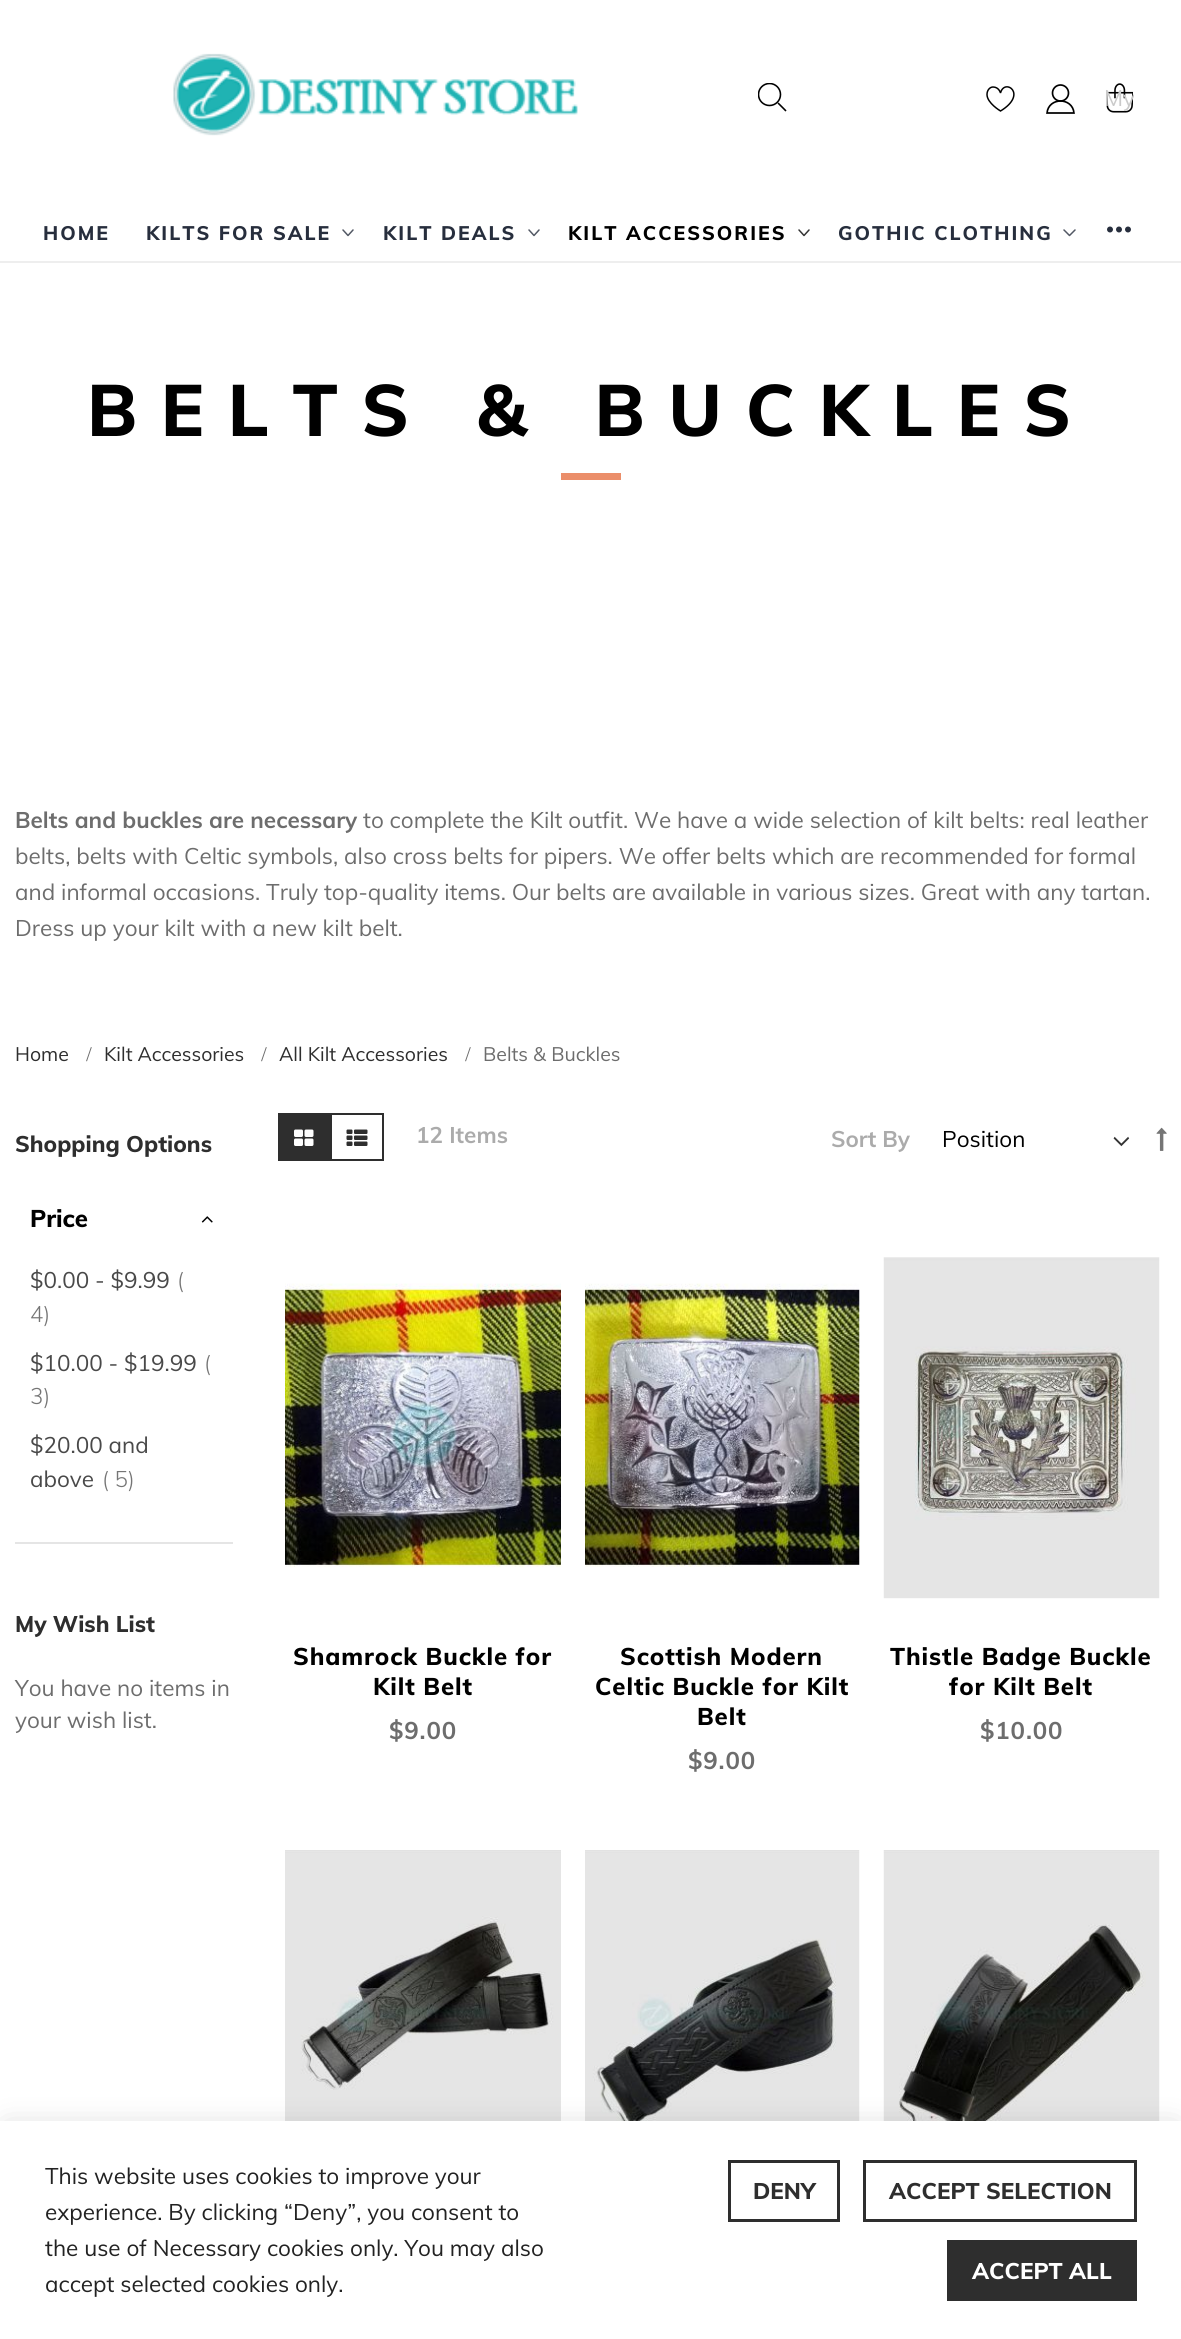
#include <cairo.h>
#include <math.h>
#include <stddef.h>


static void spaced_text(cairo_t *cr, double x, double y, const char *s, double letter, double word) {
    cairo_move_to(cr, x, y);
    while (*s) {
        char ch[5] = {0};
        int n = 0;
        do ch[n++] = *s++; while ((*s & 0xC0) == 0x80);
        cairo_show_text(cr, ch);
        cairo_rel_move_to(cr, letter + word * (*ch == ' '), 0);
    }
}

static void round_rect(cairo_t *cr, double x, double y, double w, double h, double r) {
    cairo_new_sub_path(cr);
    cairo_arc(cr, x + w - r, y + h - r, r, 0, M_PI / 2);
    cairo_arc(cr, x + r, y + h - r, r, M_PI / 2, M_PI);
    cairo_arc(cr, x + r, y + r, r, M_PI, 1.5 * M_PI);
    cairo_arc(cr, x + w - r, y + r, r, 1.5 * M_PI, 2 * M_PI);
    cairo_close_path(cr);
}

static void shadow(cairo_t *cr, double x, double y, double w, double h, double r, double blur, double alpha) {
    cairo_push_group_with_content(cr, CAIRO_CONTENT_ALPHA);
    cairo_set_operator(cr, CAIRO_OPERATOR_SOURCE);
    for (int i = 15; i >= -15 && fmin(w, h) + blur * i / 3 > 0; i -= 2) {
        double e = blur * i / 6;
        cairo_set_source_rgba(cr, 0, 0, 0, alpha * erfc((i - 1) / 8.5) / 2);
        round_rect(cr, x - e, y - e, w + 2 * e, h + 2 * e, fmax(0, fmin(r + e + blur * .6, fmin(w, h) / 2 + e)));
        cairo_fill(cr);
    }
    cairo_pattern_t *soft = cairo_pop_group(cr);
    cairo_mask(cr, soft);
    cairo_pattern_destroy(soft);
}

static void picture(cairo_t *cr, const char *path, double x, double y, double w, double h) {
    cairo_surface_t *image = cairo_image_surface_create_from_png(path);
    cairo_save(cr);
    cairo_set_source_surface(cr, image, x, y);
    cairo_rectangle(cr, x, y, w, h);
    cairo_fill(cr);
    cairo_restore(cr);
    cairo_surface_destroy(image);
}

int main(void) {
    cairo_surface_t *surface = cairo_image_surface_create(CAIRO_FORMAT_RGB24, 1181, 2339);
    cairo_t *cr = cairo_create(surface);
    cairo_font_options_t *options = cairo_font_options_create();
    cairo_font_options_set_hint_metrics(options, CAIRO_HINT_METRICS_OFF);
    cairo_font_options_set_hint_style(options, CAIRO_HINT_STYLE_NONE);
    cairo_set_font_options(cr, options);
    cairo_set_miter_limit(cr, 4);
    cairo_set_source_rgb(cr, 1, 1, 1);
    cairo_paint(cr);
    picture(cr, "img1.png", 173, 53, 405, 83);
    cairo_save(cr);
    cairo_rectangle(cr, 758, 83, 30, 30);
    cairo_clip(cr);
    cairo_arc(cr, 769.5, 94.5, 11, 0, 2 * M_PI);
    cairo_set_source_rgb(cr, 0, 0, 0);
    cairo_set_line_width(cr, 1.6);
    cairo_stroke(cr);
    cairo_restore(cr);
    cairo_new_path(cr);
    cairo_move_to(cr, 778, 103);
    cairo_line_to(cr, 786, 111);
    cairo_set_source_rgb(cr, 0, 0, 0);
    cairo_set_line_width(cr, 1.6);
    cairo_stroke(cr);
    cairo_new_path(cr);
    cairo_move_to(cr, 1000.5, 111);
    cairo_curve_to(cr, 1028.5, 94, 1004.5, 77.5, 1000.5, 93);
    cairo_curve_to(cr, 1000.5, 93, 999, 87, 993, 87);
    cairo_curve_to(cr, 990, 87, 987, 90, 987, 94.5);
    cairo_curve_to(cr, 987, 103, 1000.5, 111, 1000.5, 111);
    cairo_close_path(cr);
    cairo_set_line_width(cr, 1.5);
    cairo_stroke(cr);
    cairo_arc(cr, 1060.5, 93, 8, 0, 2 * M_PI);
    cairo_set_line_width(cr, 1.7);
    cairo_stroke(cr);
    cairo_new_path(cr);
    cairo_move_to(cr, 1074, 113);
    cairo_line_to(cr, 1047, 113);
    cairo_curve_to(cr, 1048.5, 97, 1072.5, 97, 1074, 113);
    cairo_close_path(cr);
    cairo_stroke(cr);
    picture(cr, "img2.png", 1106, 83, 27, 30);
    cairo_save(cr);
    cairo_rectangle(cr, 1104, 83, 30, 30);
    cairo_clip(cr);
    cairo_select_font_face(cr, "Muli", CAIRO_FONT_SLANT_NORMAL, CAIRO_FONT_WEIGHT_NORMAL);
    cairo_set_font_size(cr, 22.5);
    cairo_set_source_rgb(cr, 0.792, 0.792, 0.792);
    cairo_move_to(cr, 1104, 106);
    cairo_show_text(cr, "My");
    cairo_restore(cr);
    cairo_set_source_rgb(cr, 0.933, 0.933, 0.933);
    cairo_rectangle(cr, 0, 261, 1181, 2);
    cairo_fill(cr);
    cairo_select_font_face(cr, "Muli ExtraBold", CAIRO_FONT_SLANT_NORMAL, CAIRO_FONT_WEIGHT_NORMAL);
    cairo_set_font_size(cr, 19.5);
    cairo_set_source_rgb(cr, 0.153, 0.18, 0.239);
    spaced_text(cr, 43, 240, "HOME", 2, 0);
    spaced_text(cr, 146, 240, "KILTS FOR SALE", 2, 0);
    cairo_new_path(cr);
    cairo_move_to(cr, 353, 230);
    cairo_line_to(cr, 348, 235.5);
    cairo_line_to(cr, 343, 230);
    cairo_set_source_rgb(cr, 0.322, 0.345, 0.392);
    cairo_set_line_width(cr, 1.5);
    cairo_set_line_cap(cr, CAIRO_LINE_CAP_ROUND);
    cairo_set_line_join(cr, CAIRO_LINE_JOIN_ROUND);
    cairo_stroke(cr);
    cairo_set_source_rgb(cr, 0.153, 0.18, 0.239);
    spaced_text(cr, 383, 240, "KILT DEALS", 2, 0);
    cairo_new_path(cr);
    cairo_move_to(cr, 539, 230);
    cairo_line_to(cr, 534, 235.5);
    cairo_line_to(cr, 529, 230);
    cairo_set_source_rgb(cr, 0.322, 0.345, 0.392);
    cairo_stroke(cr);
    cairo_set_source_rgb(cr, 0, 0, 0);
    spaced_text(cr, 568, 240, "KILT ACCESSORIES", 2, 0);
    cairo_new_path(cr);
    cairo_move_to(cr, 809, 230);
    cairo_line_to(cr, 804, 235.5);
    cairo_line_to(cr, 799, 230);
    cairo_set_source_rgb(cr, 0.2, 0.2, 0.2);
    cairo_stroke(cr);
    cairo_set_source_rgb(cr, 0.153, 0.18, 0.239);
    spaced_text(cr, 838, 240, "GOTHIC CLOTHING", 2, 0);
    cairo_new_path(cr);
    cairo_move_to(cr, 1075, 230);
    cairo_line_to(cr, 1069.5, 235.5);
    cairo_line_to(cr, 1064, 230);
    cairo_set_source_rgb(cr, 0.322, 0.345, 0.392);
    cairo_stroke(cr);
    picture(cr, "img3.png", 1107, 226, 24, 7);
    cairo_set_font_size(cr, 72);
    cairo_set_source_rgb(cr, 0, 0, 0);
    spaced_text(cr, 87, 436, "BELTS & BUCKLES", 23.75, 0);
    cairo_set_source_rgb(cr, 0.918, 0.557, 0.416);
    cairo_rectangle(cr, 561, 473, 60, 7);
    cairo_fill(cr);
    cairo_select_font_face(cr, "Muli", CAIRO_FONT_SLANT_NORMAL, CAIRO_FONT_WEIGHT_BOLD);
    cairo_set_font_size(cr, 22.5);
    cairo_set_source_rgb(cr, 0.427, 0.427, 0.427);
    cairo_move_to(cr, 15, 828);
    cairo_show_text(cr, "Belts and buckles are necessary");
    cairo_select_font_face(cr, "Muli", CAIRO_FONT_SLANT_NORMAL, CAIRO_FONT_WEIGHT_NORMAL);
    cairo_move_to(cr, 363, 828);
    cairo_show_text(cr, "to complete the Kilt outfit. We have a wide selection of kilt belts: real leather");
    cairo_move_to(cr, 15, 864);
    cairo_show_text(cr, "belts, belts with Celtic symbols, also cross belts for pipers. We offer belts which are recommended for formal");
    cairo_move_to(cr, 15, 900);
    cairo_show_text(cr, "and informal occasions. Truly top-quality items. Our belts are available in various sizes. Great with any tartan.");
    cairo_move_to(cr, 15, 936);
    cairo_show_text(cr, "Dress up your kilt with a new kilt belt.");
    cairo_set_font_size(cr, 19.5);
    cairo_set_source_rgb(cr, 0.18, 0.18, 0.18);
    cairo_move_to(cr, 15, 1061);
    cairo_show_text(cr, "Home");
    cairo_select_font_face(cr, "Liberation Serif", CAIRO_FONT_SLANT_NORMAL, CAIRO_FONT_WEIGHT_NORMAL);
    cairo_set_font_size(cr, 21);
    cairo_set_source_rgb(cr, 0.427, 0.427, 0.427);
    cairo_move_to(cr, 86, 1061);
    cairo_show_text(cr, "/");
    cairo_select_font_face(cr, "Muli", CAIRO_FONT_SLANT_NORMAL, CAIRO_FONT_WEIGHT_NORMAL);
    cairo_set_font_size(cr, 19.5);
    cairo_set_source_rgb(cr, 0.18, 0.18, 0.18);
    cairo_move_to(cr, 104, 1061);
    cairo_show_text(cr, "Kilt Accessories");
    cairo_select_font_face(cr, "Liberation Serif", CAIRO_FONT_SLANT_NORMAL, CAIRO_FONT_WEIGHT_NORMAL);
    cairo_set_font_size(cr, 21);
    cairo_set_source_rgb(cr, 0.427, 0.427, 0.427);
    cairo_move_to(cr, 261, 1061);
    cairo_show_text(cr, "/");
    cairo_select_font_face(cr, "Muli", CAIRO_FONT_SLANT_NORMAL, CAIRO_FONT_WEIGHT_NORMAL);
    cairo_set_font_size(cr, 19.5);
    cairo_set_source_rgb(cr, 0.18, 0.18, 0.18);
    cairo_move_to(cr, 279, 1061);
    cairo_show_text(cr, "All Kilt Accessories");
    cairo_select_font_face(cr, "Liberation Serif", CAIRO_FONT_SLANT_NORMAL, CAIRO_FONT_WEIGHT_NORMAL);
    cairo_set_font_size(cr, 21);
    cairo_set_source_rgb(cr, 0.427, 0.427, 0.427);
    cairo_move_to(cr, 465, 1061);
    cairo_show_text(cr, "/");
    cairo_select_font_face(cr, "Muli", CAIRO_FONT_SLANT_NORMAL, CAIRO_FONT_WEIGHT_NORMAL);
    cairo_set_font_size(cr, 19.5);
    cairo_move_to(cr, 483, 1061);
    cairo_show_text(cr, "Belts & Buckles");
    cairo_select_font_face(cr, "Muli ExtraBold", CAIRO_FONT_SLANT_NORMAL, CAIRO_FONT_WEIGHT_NORMAL);
    cairo_set_font_size(cr, 22.5);
    cairo_set_source_rgb(cr, 0.18, 0.18, 0.18);
    cairo_move_to(cr, 15, 1152);
    cairo_show_text(cr, "Shopping Options");
    cairo_set_source_rgb(cr, 0.898, 0.898, 0.898);
    cairo_rectangle(cr, 15, 1542, 218, 2);
    cairo_fill(cr);
    cairo_set_font_size(cr, 24);
    cairo_set_source_rgb(cr, 0, 0, 0);
    cairo_move_to(cr, 30, 1227);
    cairo_show_text(cr, "Price");
    picture(cr, "img4.png", 201, 1216, 12, 7);
    cairo_select_font_face(cr, "Muli", CAIRO_FONT_SLANT_NORMAL, CAIRO_FONT_WEIGHT_NORMAL);
    cairo_set_font_size(cr, 22.5);
    cairo_set_source_rgb(cr, 0.286, 0.286, 0.286);
    cairo_move_to(cr, 30, 1288);
    cairo_show_text(cr, "$0.00 - $9.99");
    cairo_select_font_face(cr, "Muli Light", CAIRO_FONT_SLANT_NORMAL, CAIRO_FONT_WEIGHT_NORMAL);
    cairo_set_source_rgb(cr, 0.459, 0.459, 0.459);
    cairo_move_to(cr, 177, 1288);
    cairo_show_text(cr, "(");
    cairo_move_to(cr, 30, 1322);
    cairo_show_text(cr, "4)");
    cairo_select_font_face(cr, "Muli", CAIRO_FONT_SLANT_NORMAL, CAIRO_FONT_WEIGHT_NORMAL);
    cairo_set_source_rgb(cr, 0.286, 0.286, 0.286);
    cairo_move_to(cr, 30, 1371);
    cairo_show_text(cr, "$10.00 - $19.99");
    cairo_select_font_face(cr, "Muli Light", CAIRO_FONT_SLANT_NORMAL, CAIRO_FONT_WEIGHT_NORMAL);
    cairo_set_source_rgb(cr, 0.459, 0.459, 0.459);
    cairo_move_to(cr, 204, 1371);
    cairo_show_text(cr, "(");
    cairo_move_to(cr, 30, 1404);
    cairo_show_text(cr, "3)");
    cairo_select_font_face(cr, "Muli", CAIRO_FONT_SLANT_NORMAL, CAIRO_FONT_WEIGHT_NORMAL);
    cairo_set_source_rgb(cr, 0.286, 0.286, 0.286);
    cairo_move_to(cr, 30, 1453);
    cairo_show_text(cr, "$20.00 and");
    cairo_move_to(cr, 30, 1487);
    cairo_show_text(cr, "above");
    cairo_select_font_face(cr, "Muli Light", CAIRO_FONT_SLANT_NORMAL, CAIRO_FONT_WEIGHT_NORMAL);
    cairo_set_source_rgb(cr, 0.459, 0.459, 0.459);
    cairo_move_to(cr, 102, 1487);
    cairo_show_text(cr, "( 5)");
    cairo_set_source_rgb(cr, 0.18, 0.18, 0.18);
    cairo_rectangle(cr, 278, 1113, 52, 48);
    cairo_fill(cr);
    picture(cr, "img5.png", 294, 1129, 20, 17);
    cairo_rectangle(cr, 331, 1114, 52, 46);
    cairo_set_line_width(cr, 2);
    cairo_set_line_cap(cr, CAIRO_LINE_CAP_BUTT);
    cairo_set_line_join(cr, CAIRO_LINE_JOIN_MITER);
    cairo_stroke(cr);
    picture(cr, "img6.png", 346, 1129, 22, 17);
    cairo_select_font_face(cr, "Muli", CAIRO_FONT_SLANT_NORMAL, CAIRO_FONT_WEIGHT_BOLD);
    cairo_set_source_rgb(cr, 0.671, 0.671, 0.671);
    cairo_move_to(cr, 416, 1143);
    cairo_show_text(cr, "12 Items");
    cairo_move_to(cr, 831, 1147);
    cairo_show_text(cr, "Sort By");
    picture(cr, "img7.png", 1113, 1136, 17, 11);
    cairo_select_font_face(cr, "Muli", CAIRO_FONT_SLANT_NORMAL, CAIRO_FONT_WEIGHT_NORMAL);
    cairo_set_source_rgb(cr, 0, 0, 0);
    cairo_move_to(cr, 942, 1147);
    cairo_show_text(cr, "Position");
    picture(cr, "img8.png", 1156, 1127, 11, 24);
    picture(cr, "img9.png", 285, 1283, 276, 285);
    cairo_select_font_face(cr, "Muli ExtraBold", CAIRO_FONT_SLANT_NORMAL, CAIRO_FONT_WEIGHT_NORMAL);
    cairo_set_font_size(cr, 24);
    spaced_text(cr, 293, 1665, "Shamrock Buckle for", 0.9, 0);
    spaced_text(cr, 373, 1695, "Kilt Belt", 0.9, 0);
    cairo_select_font_face(cr, "Muli", CAIRO_FONT_SLANT_NORMAL, CAIRO_FONT_WEIGHT_BOLD);
    cairo_set_source_rgb(cr, 0.427, 0.427, 0.427);
    spaced_text(cr, 389, 1739, "$9.00", 0.9, 0);
    picture(cr, "img10.png", 585, 1283, 275, 284);
    cairo_select_font_face(cr, "Muli ExtraBold", CAIRO_FONT_SLANT_NORMAL, CAIRO_FONT_WEIGHT_NORMAL);
    cairo_set_source_rgb(cr, 0, 0, 0);
    spaced_text(cr, 620, 1665, "Scottish Modern", 0.9, 0);
    spaced_text(cr, 595, 1695, "Celtic Buckle for Kilt", 0.9, 0);
    spaced_text(cr, 697, 1725, "Belt", 0.9, 0);
    cairo_select_font_face(cr, "Muli", CAIRO_FONT_SLANT_NORMAL, CAIRO_FONT_WEIGHT_BOLD);
    cairo_set_source_rgb(cr, 0.427, 0.427, 0.427);
    spaced_text(cr, 688, 1769, "$9.00", 0.9, 0);
    picture(cr, "img11.png", 883, 1257, 277, 342);
    cairo_select_font_face(cr, "Muli ExtraBold", CAIRO_FONT_SLANT_NORMAL, CAIRO_FONT_WEIGHT_NORMAL);
    cairo_set_source_rgb(cr, 0, 0, 0);
    spaced_text(cr, 890, 1665, "Thistle Badge Buckle", 0.9, 0);
    spaced_text(cr, 949, 1695, "for Kilt Belt", 0.9, 0);
    cairo_select_font_face(cr, "Muli", CAIRO_FONT_SLANT_NORMAL, CAIRO_FONT_WEIGHT_BOLD);
    cairo_set_source_rgb(cr, 0.427, 0.427, 0.427);
    spaced_text(cr, 980, 1739, "$10.00", 0.9, 0);
    picture(cr, "img12.png", 285, 1850, 276, 271);
    picture(cr, "img13.png", 585, 1850, 275, 271);
    picture(cr, "img14.png", 883, 1850, 277, 271);
    cairo_select_font_face(cr, "Muli ExtraBold", CAIRO_FONT_SLANT_NORMAL, CAIRO_FONT_WEIGHT_NORMAL);
    cairo_set_font_size(cr, 22.5);
    cairo_set_source_rgb(cr, 0.18, 0.18, 0.18);
    cairo_move_to(cr, 15, 1632);
    cairo_show_text(cr, "My Wish List");
    cairo_select_font_face(cr, "Muli", CAIRO_FONT_SLANT_NORMAL, CAIRO_FONT_WEIGHT_NORMAL);
    cairo_set_source_rgb(cr, 0.427, 0.427, 0.427);
    cairo_move_to(cr, 15, 1696);
    cairo_show_text(cr, "You have no items in");
    cairo_move_to(cr, 15, 1728);
    cairo_show_text(cr, "your wish list.");
    cairo_set_source_rgb(cr, 0, 0, 0);
    shadow(cr, 8, 2129, 1167, 204, 0, 15, 0.2);
    cairo_set_source_rgb(cr, 1, 1, 1);
    cairo_rectangle(cr, 0, 2121, 1181, 218);
    cairo_fill(cr);
    cairo_set_source_rgb(cr, 0.133, 0.133, 0.133);
    cairo_move_to(cr, 45, 2184);
    cairo_show_text(cr, "This website uses cookies to improve your");
    cairo_move_to(cr, 45, 2220);
    cairo_show_text(cr, "experience. By clicking “Deny”, you consent to");
    cairo_move_to(cr, 45, 2256);
    cairo_show_text(cr, "the use of Necessary cookies only. You may also");
    cairo_move_to(cr, 45, 2292);
    cairo_show_text(cr, "accept selected cookies only.");
    cairo_rectangle(cr, 729.5, 2161.5, 109, 59);
    cairo_set_source_rgb(cr, 0.18, 0.18, 0.18);
    cairo_set_line_width(cr, 3);
    cairo_stroke(cr);
    cairo_select_font_face(cr, "Muli ExtraBold", CAIRO_FONT_SLANT_NORMAL, CAIRO_FONT_WEIGHT_NORMAL);
    cairo_move_to(cr, 753, 2199);
    cairo_show_text(cr, "DENY");
    cairo_rectangle(cr, 864.5, 2161.5, 271, 59);
    cairo_stroke(cr);
    cairo_move_to(cr, 889, 2199);
    cairo_show_text(cr, "ACCEPT SELECTION");
    cairo_rectangle(cr, 947, 2240, 190, 61);
    cairo_fill(cr);
    cairo_set_source_rgb(cr, 1, 1, 1);
    cairo_move_to(cr, 972, 2279);
    cairo_show_text(cr, "ACCEPT ALL");
    cairo_surface_write_to_png(surface, "page.png");
    cairo_font_options_destroy(options);
    cairo_destroy(cr);
    cairo_surface_destroy(surface);
    return 0;
}
